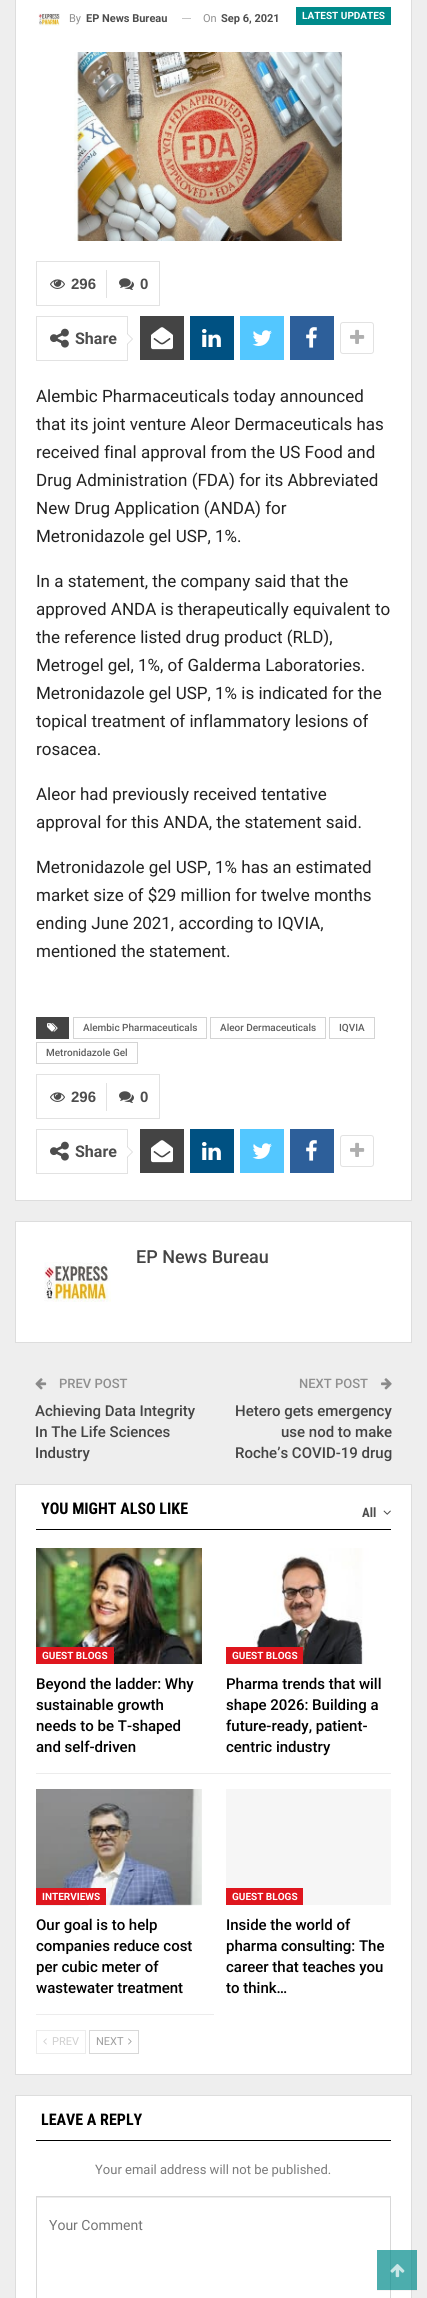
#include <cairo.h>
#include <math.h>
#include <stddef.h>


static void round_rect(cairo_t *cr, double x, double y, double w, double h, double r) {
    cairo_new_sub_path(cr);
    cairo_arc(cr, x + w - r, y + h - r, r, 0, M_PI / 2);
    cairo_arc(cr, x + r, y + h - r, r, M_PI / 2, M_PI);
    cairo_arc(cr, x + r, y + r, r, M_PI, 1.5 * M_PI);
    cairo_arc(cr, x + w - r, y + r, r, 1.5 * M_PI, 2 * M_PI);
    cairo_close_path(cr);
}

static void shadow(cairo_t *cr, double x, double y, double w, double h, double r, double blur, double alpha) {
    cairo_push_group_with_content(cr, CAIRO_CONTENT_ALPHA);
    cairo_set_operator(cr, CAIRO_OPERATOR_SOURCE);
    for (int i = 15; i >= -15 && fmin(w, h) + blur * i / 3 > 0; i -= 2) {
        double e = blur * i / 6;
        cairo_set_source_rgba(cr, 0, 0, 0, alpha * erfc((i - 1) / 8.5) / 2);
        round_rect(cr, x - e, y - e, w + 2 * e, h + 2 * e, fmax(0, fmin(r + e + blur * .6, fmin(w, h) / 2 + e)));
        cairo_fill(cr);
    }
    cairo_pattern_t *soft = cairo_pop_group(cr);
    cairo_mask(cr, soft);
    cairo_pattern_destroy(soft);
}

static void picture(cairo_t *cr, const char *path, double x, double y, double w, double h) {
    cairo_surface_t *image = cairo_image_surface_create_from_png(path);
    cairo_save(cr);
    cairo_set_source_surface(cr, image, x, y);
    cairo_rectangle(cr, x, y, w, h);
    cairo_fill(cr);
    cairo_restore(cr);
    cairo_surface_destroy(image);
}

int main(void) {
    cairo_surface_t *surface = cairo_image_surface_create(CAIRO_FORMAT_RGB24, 427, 2298);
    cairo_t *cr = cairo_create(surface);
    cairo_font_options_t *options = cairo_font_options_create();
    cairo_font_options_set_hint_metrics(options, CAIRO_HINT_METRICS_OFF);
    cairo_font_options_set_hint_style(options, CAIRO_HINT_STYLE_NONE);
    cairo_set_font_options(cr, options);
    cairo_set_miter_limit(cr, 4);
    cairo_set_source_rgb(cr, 0.933, 0.933, 0.933);
    cairo_paint(cr);
    cairo_set_source_rgb(cr, 1, 1, 1);
    cairo_rectangle(cr, 15.5, -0.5, 396, 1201);
    cairo_fill_preserve(cr);
    cairo_set_source_rgb(cr, 0.867, 0.867, 0.867);
    cairo_set_line_width(cr, 1);
    cairo_stroke(cr);
    picture(cr, "img1.png", 38, 13, 22, 13);
    cairo_select_font_face(cr, "Roboto", CAIRO_FONT_SLANT_NORMAL, CAIRO_FONT_WEIGHT_NORMAL);
    cairo_set_font_size(cr, 11);
    cairo_set_source_rgb(cr, 0.561, 0.561, 0.561);
    cairo_move_to(cr, 69, 22);
    cairo_show_text(cr, "By");
    cairo_select_font_face(cr, "Roboto", CAIRO_FONT_SLANT_NORMAL, CAIRO_FONT_WEIGHT_BOLD);
    cairo_set_source_rgb(cr, 0.302, 0.302, 0.302);
    cairo_move_to(cr, 86, 22);
    cairo_show_text(cr, "EP News Bureau");
    cairo_set_source_rgb(cr, 0.769, 0.769, 0.769);
    cairo_rectangle(cr, 182, 18, 9, 1);
    cairo_fill(cr);
    cairo_select_font_face(cr, "Roboto", CAIRO_FONT_SLANT_NORMAL, CAIRO_FONT_WEIGHT_NORMAL);
    cairo_set_source_rgb(cr, 0.561, 0.561, 0.561);
    cairo_move_to(cr, 203, 22);
    cairo_show_text(cr, "On");
    cairo_select_font_face(cr, "Roboto", CAIRO_FONT_SLANT_NORMAL, CAIRO_FONT_WEIGHT_BOLD);
    cairo_set_source_rgb(cr, 0.302, 0.302, 0.302);
    cairo_move_to(cr, 221, 22);
    cairo_show_text(cr, "Sep 6, 2021");
    cairo_set_source_rgb(cr, 0, 0.545, 0.545);
    cairo_rectangle(cr, 296, 7, 95, 18);
    cairo_fill(cr);
    cairo_set_font_size(cr, 10);
    cairo_set_source_rgb(cr, 1, 1, 1);
    cairo_move_to(cr, 302, 19);
    cairo_show_text(cr, "LATEST UPDATES");
    picture(cr, "img2.png", 74, 52, 269, 189);
    cairo_set_source_rgb(cr, 0.886, 0.886, 0.886);
    cairo_rectangle(cr, 36, 261, 124, 1);
    cairo_fill(cr);
    cairo_rectangle(cr, 159, 261, 1, 45);
    cairo_fill(cr);
    cairo_rectangle(cr, 36, 305, 124, 1);
    cairo_fill(cr);
    cairo_rectangle(cr, 36, 261, 1, 45);
    cairo_fill(cr);
    picture(cr, "img3.png", 50, 279, 15, 10);
    cairo_select_font_face(cr, "Liberation Sans", CAIRO_FONT_SLANT_NORMAL, CAIRO_FONT_WEIGHT_BOLD);
    cairo_set_font_size(cr, 15);
    cairo_set_source_rgb(cr, 0.302, 0.302, 0.302);
    cairo_move_to(cr, 71, 289);
    cairo_show_text(cr, "296");
    cairo_set_source_rgb(cr, 0.886, 0.886, 0.886);
    cairo_rectangle(cr, 106, 270, 1, 28);
    cairo_fill(cr);
    picture(cr, "img4.png", 119, 278, 15, 12);
    cairo_set_source_rgb(cr, 0.302, 0.302, 0.302);
    cairo_move_to(cr, 140, 289);
    cairo_show_text(cr, "0");
    cairo_rectangle(cr, 36.5, 316.5, 91, 44);
    cairo_set_source_rgb(cr, 0.886, 0.886, 0.886);
    cairo_stroke(cr);
    picture(cr, "img5.png", 50, 328, 19, 20);
    cairo_select_font_face(cr, "Roboto", CAIRO_FONT_SLANT_NORMAL, CAIRO_FONT_WEIGHT_BOLD);
    cairo_set_font_size(cr, 16);
    cairo_set_source_rgb(cr, 0.302, 0.302, 0.302);
    cairo_move_to(cr, 75, 344);
    cairo_show_text(cr, "Share");
    cairo_set_source_rgb(cr, 0.843, 0.843, 0.843);
    cairo_new_path(cr);
    cairo_move_to(cr, 127, 345);
    cairo_line_to(cr, 127, 333);
    cairo_line_to(cr, 133, 339);
    cairo_close_path(cr);
    cairo_fill(cr);
    cairo_set_source_rgb(cr, 1, 1, 1);
    cairo_new_path(cr);
    cairo_move_to(cr, 127, 344);
    cairo_line_to(cr, 127, 334);
    cairo_line_to(cr, 132, 339);
    cairo_close_path(cr);
    cairo_fill(cr);
    cairo_set_source_rgb(cr, 0.267, 0.267, 0.267);
    cairo_rectangle(cr, 140, 316, 44, 44);
    cairo_fill(cr);
    picture(cr, "img6.png", 151, 327, 22, 23);
    cairo_set_source_rgb(cr, 0, 0.318, 0.51);
    cairo_rectangle(cr, 190, 316, 44, 44);
    cairo_fill(cr);
    picture(cr, "img7.png", 202, 329, 19, 18);
    cairo_set_source_rgb(cr, 0.325, 0.78, 1);
    cairo_rectangle(cr, 240, 316, 44, 44);
    cairo_fill(cr);
    picture(cr, "img8.png", 252, 330, 20, 16);
    cairo_set_source_rgb(cr, 0.176, 0.373, 0.604);
    cairo_rectangle(cr, 290, 316, 44, 44);
    cairo_fill(cr);
    picture(cr, "img9.png", 306, 327, 11, 21);
    round_rect(cr, 340.5, 322.5, 33, 31, 2.5);
    cairo_set_source_rgb(cr, 0.886, 0.886, 0.886);
    cairo_stroke(cr);
    picture(cr, "img10.png", 350, 329, 15, 15);
    cairo_select_font_face(cr, "Roboto", CAIRO_FONT_SLANT_NORMAL, CAIRO_FONT_WEIGHT_NORMAL);
    cairo_set_font_size(cr, 17);
    cairo_set_source_rgb(cr, 0.133, 0.133, 0.133);
    cairo_move_to(cr, 36, 402);
    cairo_show_text(cr, "Alembic Pharmaceuticals today announced");
    cairo_move_to(cr, 36, 430);
    cairo_show_text(cr, "that its joint venture Aleor Dermaceuticals has");
    cairo_move_to(cr, 36, 458);
    cairo_show_text(cr, "received final approval from the US Food and");
    cairo_move_to(cr, 36, 486);
    cairo_show_text(cr, "Drug Administration (FDA) for its Abbreviated");
    cairo_move_to(cr, 36, 514);
    cairo_show_text(cr, "New Drug Application (ANDA) for");
    cairo_move_to(cr, 36, 542);
    cairo_show_text(cr, "Metronidazole gel USP, 1%.");
    cairo_move_to(cr, 36, 587);
    cairo_show_text(cr, "In a statement, the company said that the");
    cairo_move_to(cr, 36, 615);
    cairo_show_text(cr, "approved ANDA is therapeutically equivalent to");
    cairo_move_to(cr, 36, 643);
    cairo_show_text(cr, "the reference listed drug product (RLD),");
    cairo_move_to(cr, 36, 671);
    cairo_show_text(cr, "Metrogel gel, 1%, of Galderma Laboratories.");
    cairo_move_to(cr, 36, 699);
    cairo_show_text(cr, "Metronidazole gel USP, 1% is indicated for the");
    cairo_move_to(cr, 36, 727);
    cairo_show_text(cr, "topical treatment of inflammatory lesions of");
    cairo_move_to(cr, 36, 755);
    cairo_show_text(cr, "rosacea.");
    cairo_move_to(cr, 36, 800);
    cairo_show_text(cr, "Aleor had previously received tentative");
    cairo_move_to(cr, 36, 828);
    cairo_show_text(cr, "approval for this ANDA, the statement said.");
    cairo_move_to(cr, 36, 873);
    cairo_show_text(cr, "Metronidazole gel USP, 1% has an estimated");
    cairo_move_to(cr, 36, 901);
    cairo_show_text(cr, "market size of $29 million for twelve months");
    cairo_move_to(cr, 36, 929);
    cairo_show_text(cr, "ending June 2021, according to IQVIA,");
    cairo_move_to(cr, 36, 957);
    cairo_show_text(cr, "mentioned the statement.");
    cairo_set_source_rgb(cr, 0.267, 0.267, 0.267);
    cairo_rectangle(cr, 36, 1017, 33, 22);
    cairo_fill(cr);
    picture(cr, "img11.png", 47, 1023, 11, 9);
    cairo_rectangle(cr, 73.5, 1017.5, 133, 21);
    cairo_set_source_rgb(cr, 0.831, 0.831, 0.831);
    cairo_stroke(cr);
    cairo_select_font_face(cr, "Roboto Medium", CAIRO_FONT_SLANT_NORMAL, CAIRO_FONT_WEIGHT_NORMAL);
    cairo_set_font_size(cr, 10);
    cairo_set_source_rgb(cr, 0.373, 0.373, 0.373);
    cairo_move_to(cr, 83, 1031);
    cairo_show_text(cr, "Alembic Pharmaceuticals");
    cairo_rectangle(cr, 210.5, 1017.5, 115, 21);
    cairo_set_source_rgb(cr, 0.831, 0.831, 0.831);
    cairo_stroke(cr);
    cairo_set_source_rgb(cr, 0.373, 0.373, 0.373);
    cairo_move_to(cr, 220, 1031);
    cairo_show_text(cr, "Aleor Dermaceuticals");
    cairo_rectangle(cr, 329.5, 1017.5, 45, 21);
    cairo_set_source_rgb(cr, 0.831, 0.831, 0.831);
    cairo_stroke(cr);
    cairo_set_source_rgb(cr, 0.373, 0.373, 0.373);
    cairo_move_to(cr, 339, 1031);
    cairo_show_text(cr, "IQVIA");
    cairo_rectangle(cr, 36.5, 1042.5, 101, 21);
    cairo_set_source_rgb(cr, 0.831, 0.831, 0.831);
    cairo_stroke(cr);
    cairo_set_source_rgb(cr, 0.373, 0.373, 0.373);
    cairo_move_to(cr, 46, 1056);
    cairo_show_text(cr, "Metronidazole Gel");
    cairo_set_source_rgb(cr, 0.886, 0.886, 0.886);
    cairo_rectangle(cr, 36, 1074, 124, 1);
    cairo_fill(cr);
    cairo_rectangle(cr, 159, 1074, 1, 45);
    cairo_fill(cr);
    cairo_rectangle(cr, 36, 1118, 124, 1);
    cairo_fill(cr);
    cairo_rectangle(cr, 36, 1074, 1, 45);
    cairo_fill(cr);
    picture(cr, "img3.png", 50, 1092, 15, 10);
    cairo_select_font_face(cr, "Liberation Sans", CAIRO_FONT_SLANT_NORMAL, CAIRO_FONT_WEIGHT_BOLD);
    cairo_set_font_size(cr, 15);
    cairo_set_source_rgb(cr, 0.302, 0.302, 0.302);
    cairo_move_to(cr, 71, 1102);
    cairo_show_text(cr, "296");
    cairo_set_source_rgb(cr, 0.886, 0.886, 0.886);
    cairo_rectangle(cr, 106, 1083, 1, 28);
    cairo_fill(cr);
    picture(cr, "img4.png", 119, 1091, 15, 12);
    cairo_set_source_rgb(cr, 0.302, 0.302, 0.302);
    cairo_move_to(cr, 140, 1102);
    cairo_show_text(cr, "0");
    cairo_rectangle(cr, 36.5, 1129.5, 91, 44);
    cairo_set_source_rgb(cr, 0.886, 0.886, 0.886);
    cairo_stroke(cr);
    picture(cr, "img5.png", 50, 1141, 19, 20);
    cairo_select_font_face(cr, "Roboto", CAIRO_FONT_SLANT_NORMAL, CAIRO_FONT_WEIGHT_BOLD);
    cairo_set_font_size(cr, 16);
    cairo_set_source_rgb(cr, 0.302, 0.302, 0.302);
    cairo_move_to(cr, 75, 1157);
    cairo_show_text(cr, "Share");
    cairo_set_source_rgb(cr, 0.843, 0.843, 0.843);
    cairo_new_path(cr);
    cairo_move_to(cr, 127, 1158);
    cairo_line_to(cr, 127, 1146);
    cairo_line_to(cr, 133, 1152);
    cairo_close_path(cr);
    cairo_fill(cr);
    cairo_set_source_rgb(cr, 1, 1, 1);
    cairo_new_path(cr);
    cairo_move_to(cr, 127, 1157);
    cairo_line_to(cr, 127, 1147);
    cairo_line_to(cr, 132, 1152);
    cairo_close_path(cr);
    cairo_fill(cr);
    cairo_set_source_rgb(cr, 0.267, 0.267, 0.267);
    cairo_rectangle(cr, 140, 1129, 44, 44);
    cairo_fill(cr);
    picture(cr, "img6.png", 151, 1140, 22, 23);
    cairo_set_source_rgb(cr, 0, 0.318, 0.51);
    cairo_rectangle(cr, 190, 1129, 44, 44);
    cairo_fill(cr);
    picture(cr, "img7.png", 202, 1142, 19, 18);
    cairo_set_source_rgb(cr, 0.325, 0.78, 1);
    cairo_rectangle(cr, 240, 1129, 44, 44);
    cairo_fill(cr);
    picture(cr, "img8.png", 252, 1143, 20, 16);
    cairo_set_source_rgb(cr, 0.176, 0.373, 0.604);
    cairo_rectangle(cr, 290, 1129, 44, 44);
    cairo_fill(cr);
    picture(cr, "img9.png", 306, 1140, 11, 21);
    round_rect(cr, 340.5, 1135.5, 33, 31, 2.5);
    cairo_set_source_rgb(cr, 0.886, 0.886, 0.886);
    cairo_stroke(cr);
    picture(cr, "img10.png", 350, 1142, 15, 15);
    cairo_set_source_rgb(cr, 1, 1, 1);
    cairo_rectangle(cr, 15.5, 1221.5, 396, 121);
    cairo_fill_preserve(cr);
    cairo_set_source_rgb(cr, 0.867, 0.867, 0.867);
    cairo_stroke(cr);
    cairo_select_font_face(cr, "Roboto Medium", CAIRO_FONT_SLANT_NORMAL, CAIRO_FONT_WEIGHT_NORMAL);
    cairo_set_font_size(cr, 18);
    cairo_set_source_rgb(cr, 0.267, 0.267, 0.267);
    cairo_move_to(cr, 136, 1263);
    cairo_show_text(cr, "EP News Bureau");
    picture(cr, "img12.png", 44, 1262, 67, 40);
    picture(cr, "img13.png", 35, 1378, 12, 12);
    cairo_set_font_size(cr, 13);
    cairo_set_source_rgb(cr, 0.561, 0.561, 0.561);
    cairo_move_to(cr, 59, 1388);
    cairo_show_text(cr, "PREV POST");
    cairo_set_font_size(cr, 15);
    cairo_set_source_rgb(cr, 0.267, 0.267, 0.267);
    cairo_move_to(cr, 35, 1416);
    cairo_show_text(cr, "Achieving Data Integrity");
    cairo_move_to(cr, 35, 1437);
    cairo_show_text(cr, "In The Life Sciences");
    cairo_move_to(cr, 35, 1458);
    cairo_show_text(cr, "Industry");
    cairo_set_font_size(cr, 13);
    cairo_set_source_rgb(cr, 0.561, 0.561, 0.561);
    cairo_move_to(cr, 299, 1388);
    cairo_show_text(cr, "NEXT POST");
    picture(cr, "img14.png", 381, 1378, 11, 12);
    cairo_set_font_size(cr, 15);
    cairo_set_source_rgb(cr, 0.267, 0.267, 0.267);
    cairo_move_to(cr, 235, 1416);
    cairo_show_text(cr, "Hetero gets emergency");
    cairo_move_to(cr, 281, 1437);
    cairo_show_text(cr, "use nod to make");
    cairo_move_to(cr, 235, 1458);
    cairo_show_text(cr, "Roche’s COVID-19 drug");
    cairo_set_source_rgb(cr, 1, 1, 1);
    cairo_rectangle(cr, 15.5, 1484.5, 396, 590);
    cairo_fill_preserve(cr);
    cairo_set_source_rgb(cr, 0.867, 0.867, 0.867);
    cairo_stroke(cr);
    cairo_select_font_face(cr, "Roboto Condensed", CAIRO_FONT_SLANT_NORMAL, CAIRO_FONT_WEIGHT_BOLD);
    cairo_set_font_size(cr, 16);
    cairo_set_source_rgb(cr, 0, 0, 0);
    cairo_move_to(cr, 41, 1514);
    cairo_show_text(cr, "YOU MIGHT ALSO LIKE");
    cairo_set_font_size(cr, 13);
    cairo_set_source_rgb(cr, 0.302, 0.302, 0.302);
    cairo_move_to(cr, 362, 1517);
    cairo_show_text(cr, "All");
    picture(cr, "img15.png", 383, 1510, 8, 5);
    cairo_set_source_rgb(cr, 0, 0, 0);
    cairo_rectangle(cr, 36, 1529, 355, 1);
    cairo_fill(cr);
    cairo_set_source_rgb(cr, 0.922, 0.922, 0.922);
    cairo_rectangle(cr, 36, 1773, 355, 1);
    cairo_fill(cr);
    picture(cr, "img16.png", 36, 1548, 166, 116);
    cairo_set_source_rgb(cr, 0.875, 0.086, 0.118);
    cairo_rectangle(cr, 36, 1647, 78, 17);
    cairo_fill(cr);
    cairo_select_font_face(cr, "Roboto", CAIRO_FONT_SLANT_NORMAL, CAIRO_FONT_WEIGHT_BOLD);
    cairo_set_font_size(cr, 10);
    cairo_set_source_rgb(cr, 1, 1, 1);
    cairo_move_to(cr, 42, 1659);
    cairo_show_text(cr, "GUEST BLOGS");
    cairo_select_font_face(cr, "Roboto Medium", CAIRO_FONT_SLANT_NORMAL, CAIRO_FONT_WEIGHT_NORMAL);
    cairo_set_font_size(cr, 15);
    cairo_set_source_rgb(cr, 0, 0, 0);
    cairo_move_to(cr, 36, 1689);
    cairo_show_text(cr, "Beyond the ladder: Why");
    cairo_move_to(cr, 36, 1710);
    cairo_show_text(cr, "sustainable growth");
    cairo_move_to(cr, 36, 1731);
    cairo_show_text(cr, "needs to be T-shaped");
    cairo_move_to(cr, 36, 1752);
    cairo_show_text(cr, "and self-driven");
    picture(cr, "img17.png", 226, 1548, 165, 116);
    cairo_set_source_rgb(cr, 0.875, 0.086, 0.118);
    cairo_rectangle(cr, 226, 1647, 77, 17);
    cairo_fill(cr);
    cairo_select_font_face(cr, "Roboto", CAIRO_FONT_SLANT_NORMAL, CAIRO_FONT_WEIGHT_BOLD);
    cairo_set_font_size(cr, 10);
    cairo_set_source_rgb(cr, 1, 1, 1);
    cairo_move_to(cr, 232, 1659);
    cairo_show_text(cr, "GUEST BLOGS");
    cairo_select_font_face(cr, "Roboto Medium", CAIRO_FONT_SLANT_NORMAL, CAIRO_FONT_WEIGHT_NORMAL);
    cairo_set_font_size(cr, 15);
    cairo_set_source_rgb(cr, 0, 0, 0);
    cairo_move_to(cr, 226, 1689);
    cairo_show_text(cr, "Pharma trends that will");
    cairo_move_to(cr, 226, 1710);
    cairo_show_text(cr, "shape 2026: Building a");
    cairo_move_to(cr, 226, 1731);
    cairo_show_text(cr, "future-ready, patient-");
    cairo_move_to(cr, 226, 1752);
    cairo_show_text(cr, "centric industry");
    cairo_set_source_rgb(cr, 0.922, 0.922, 0.922);
    cairo_rectangle(cr, 36, 2014, 178, 1);
    cairo_fill(cr);
    picture(cr, "img18.png", 36, 1789, 166, 117);
    cairo_set_source_rgb(cr, 0.875, 0.086, 0.118);
    cairo_rectangle(cr, 36, 1888, 70, 17);
    cairo_fill(cr);
    cairo_select_font_face(cr, "Roboto", CAIRO_FONT_SLANT_NORMAL, CAIRO_FONT_WEIGHT_BOLD);
    cairo_set_font_size(cr, 10);
    cairo_set_source_rgb(cr, 1, 1, 1);
    cairo_move_to(cr, 42, 1900);
    cairo_show_text(cr, "INTERVIEWS");
    cairo_select_font_face(cr, "Roboto Medium", CAIRO_FONT_SLANT_NORMAL, CAIRO_FONT_WEIGHT_NORMAL);
    cairo_set_font_size(cr, 15);
    cairo_set_source_rgb(cr, 0, 0, 0);
    cairo_move_to(cr, 36, 1930);
    cairo_show_text(cr, "Our goal is to help");
    cairo_move_to(cr, 36, 1951);
    cairo_show_text(cr, "companies reduce cost");
    cairo_move_to(cr, 36, 1972);
    cairo_show_text(cr, "per cubic meter of");
    cairo_move_to(cr, 36, 1993);
    cairo_show_text(cr, "wastewater treatment");
    cairo_set_source_rgb(cr, 0.961, 0.961, 0.961);
    cairo_rectangle(cr, 226, 1789, 165, 116);
    cairo_fill(cr);
    cairo_set_source_rgb(cr, 0.875, 0.086, 0.118);
    cairo_rectangle(cr, 226, 1888, 77, 17);
    cairo_fill(cr);
    cairo_select_font_face(cr, "Roboto", CAIRO_FONT_SLANT_NORMAL, CAIRO_FONT_WEIGHT_BOLD);
    cairo_set_font_size(cr, 10);
    cairo_set_source_rgb(cr, 1, 1, 1);
    cairo_move_to(cr, 232, 1900);
    cairo_show_text(cr, "GUEST BLOGS");
    cairo_select_font_face(cr, "Roboto Medium", CAIRO_FONT_SLANT_NORMAL, CAIRO_FONT_WEIGHT_NORMAL);
    cairo_set_font_size(cr, 15);
    cairo_set_source_rgb(cr, 0, 0, 0);
    cairo_move_to(cr, 226, 1930);
    cairo_show_text(cr, "Inside the world of");
    cairo_move_to(cr, 226, 1951);
    cairo_show_text(cr, "pharma consulting: The");
    cairo_move_to(cr, 226, 1972);
    cairo_show_text(cr, "career that teaches you");
    cairo_move_to(cr, 226, 1993);
    cairo_show_text(cr, "to think…");
    cairo_rectangle(cr, 36.5, 2030.5, 49, 23);
    cairo_set_source_rgb(cr, 0.925, 0.925, 0.925);
    cairo_stroke(cr);
    picture(cr, "img19.png", 43, 2038, 4, 7);
    cairo_select_font_face(cr, "Roboto", CAIRO_FONT_SLANT_NORMAL, CAIRO_FONT_WEIGHT_NORMAL);
    cairo_set_font_size(cr, 11);
    cairo_set_source_rgb(cr, 0.812, 0.812, 0.812);
    cairo_move_to(cr, 52, 2045);
    cairo_show_text(cr, "PREV");
    cairo_rectangle(cr, 89.5, 2030.5, 49, 23);
    cairo_set_source_rgb(cr, 0.847, 0.847, 0.847);
    cairo_stroke(cr);
    cairo_set_source_rgb(cr, 0.62, 0.62, 0.62);
    cairo_move_to(cr, 96, 2045);
    cairo_show_text(cr, "NEXT");
    picture(cr, "img20.png", 128, 2038, 4, 7);
    cairo_set_source_rgb(cr, 1, 1, 1);
    cairo_rectangle(cr, 15.5, 2095.5, 396, 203);
    cairo_fill_preserve(cr);
    cairo_set_source_rgb(cr, 0.867, 0.867, 0.867);
    cairo_stroke(cr);
    cairo_select_font_face(cr, "Roboto Condensed", CAIRO_FONT_SLANT_NORMAL, CAIRO_FONT_WEIGHT_BOLD);
    cairo_set_font_size(cr, 16);
    cairo_set_source_rgb(cr, 0, 0, 0);
    cairo_move_to(cr, 41, 2125);
    cairo_show_text(cr, "LEAVE A REPLY");
    cairo_rectangle(cr, 36, 2140, 355, 1);
    cairo_fill(cr);
    cairo_select_font_face(cr, "Roboto", CAIRO_FONT_SLANT_NORMAL, CAIRO_FONT_WEIGHT_NORMAL);
    cairo_set_font_size(cr, 13);
    cairo_set_source_rgb(cr, 0.482, 0.482, 0.482);
    cairo_move_to(cr, 95, 2174);
    cairo_show_text(cr, "Your email address will not be published.");
    cairo_set_source_rgb(cr, 0.925, 0.925, 0.925);
    cairo_rectangle(cr, 37, 2197, 353, 1);
    cairo_fill(cr);
    cairo_rectangle(cr, 36.5, 2196.5, 354, 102);
    cairo_set_source_rgb(cr, 0.847, 0.847, 0.847);
    cairo_stroke(cr);
    cairo_set_font_size(cr, 14);
    cairo_set_source_rgb(cr, 0.459, 0.459, 0.459);
    cairo_move_to(cr, 49, 2230);
    cairo_show_text(cr, "Your Comment");
    cairo_save(cr);
    cairo_rectangle(cr, 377, 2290, 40, 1);
    cairo_clip(cr);
    cairo_set_source_rgb(cr, 0, 0, 0);
    shadow(cr, 377, 2251, 40, 40, 0, 1, 0.06);
    cairo_restore(cr);
    cairo_set_source_rgba(cr, 0, 0.545, 0.545, 0.7);
    cairo_rectangle(cr, 377, 2250, 40, 40);
    cairo_fill(cr);
    picture(cr, "img21.png", 390, 2264, 15, 14);
    cairo_surface_write_to_png(surface, "page.png");
    cairo_font_options_destroy(options);
    cairo_destroy(cr);
    cairo_surface_destroy(surface);
    return 0;
}
